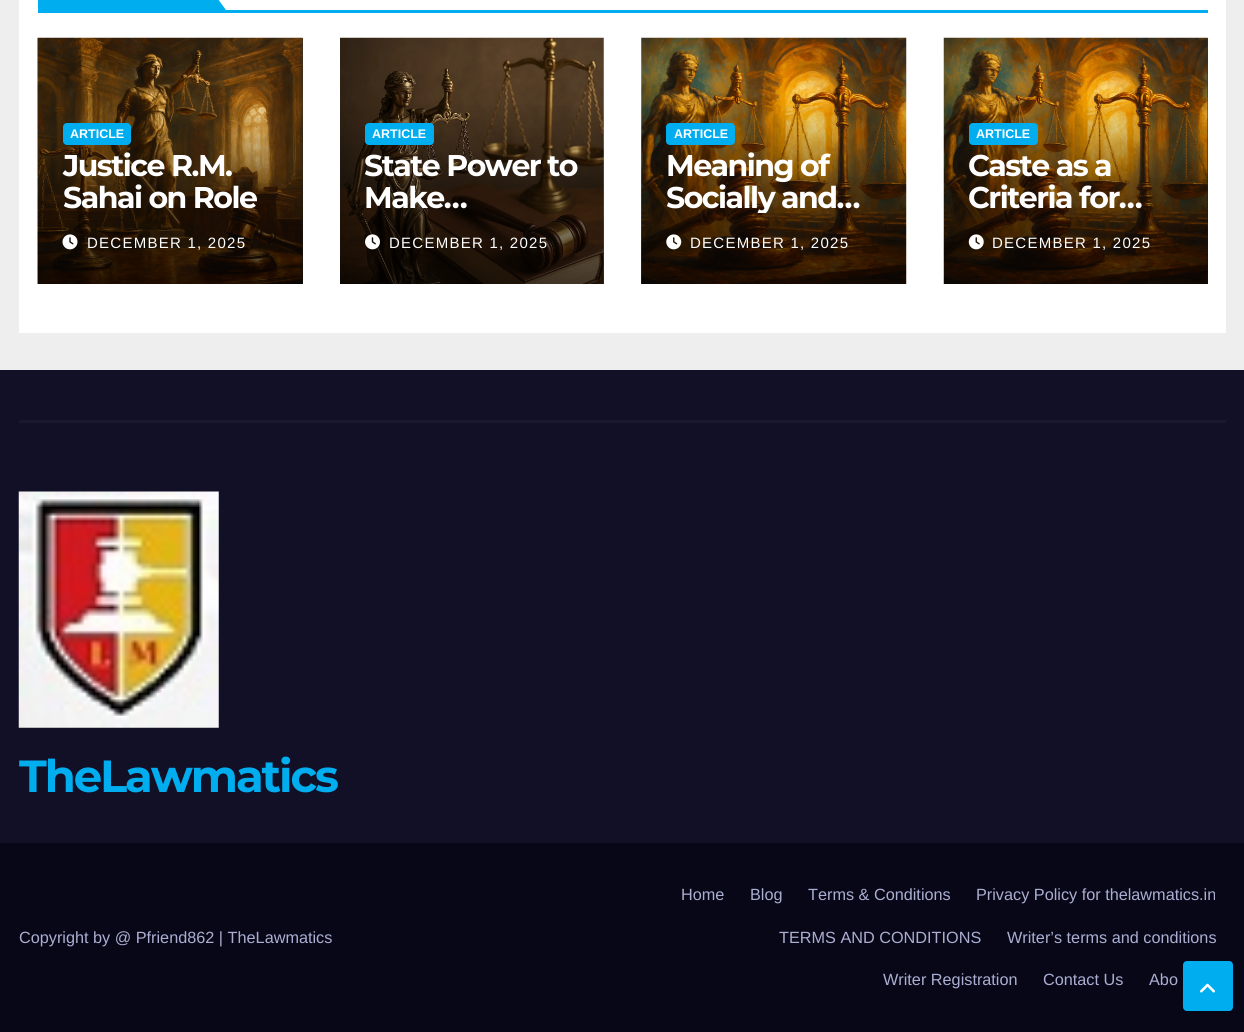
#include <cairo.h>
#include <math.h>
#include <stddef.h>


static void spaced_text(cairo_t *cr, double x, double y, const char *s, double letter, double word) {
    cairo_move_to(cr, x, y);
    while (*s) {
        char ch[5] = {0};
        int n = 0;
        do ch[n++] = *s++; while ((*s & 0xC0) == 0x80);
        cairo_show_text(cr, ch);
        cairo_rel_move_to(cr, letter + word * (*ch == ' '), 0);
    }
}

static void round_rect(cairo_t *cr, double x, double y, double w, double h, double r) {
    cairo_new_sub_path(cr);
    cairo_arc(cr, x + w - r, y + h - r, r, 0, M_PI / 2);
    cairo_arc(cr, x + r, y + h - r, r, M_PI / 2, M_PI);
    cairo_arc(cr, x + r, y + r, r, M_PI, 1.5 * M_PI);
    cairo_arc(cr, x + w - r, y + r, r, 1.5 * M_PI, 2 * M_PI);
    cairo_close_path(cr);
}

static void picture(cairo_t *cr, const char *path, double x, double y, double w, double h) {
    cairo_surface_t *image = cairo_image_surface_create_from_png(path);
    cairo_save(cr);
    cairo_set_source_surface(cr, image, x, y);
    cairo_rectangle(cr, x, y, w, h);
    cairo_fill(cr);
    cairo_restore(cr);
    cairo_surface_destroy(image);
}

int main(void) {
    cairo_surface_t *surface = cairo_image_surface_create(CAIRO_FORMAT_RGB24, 1244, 1032);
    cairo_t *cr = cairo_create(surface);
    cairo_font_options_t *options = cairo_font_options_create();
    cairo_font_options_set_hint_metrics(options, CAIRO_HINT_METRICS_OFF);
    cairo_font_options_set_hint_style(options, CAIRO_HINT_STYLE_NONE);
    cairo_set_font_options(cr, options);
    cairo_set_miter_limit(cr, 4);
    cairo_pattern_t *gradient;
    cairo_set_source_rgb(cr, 0.933, 0.933, 0.933);
    cairo_paint(cr);
    cairo_set_source_rgb(cr, 1, 1, 1);
    cairo_rectangle(cr, 19, 0, 1207, 333);
    cairo_fill(cr);
    cairo_set_source_rgb(cr, 0, 0.678, 0.937);
    cairo_rectangle(cr, 38, 10, 1170, 3);
    cairo_fill(cr);
    cairo_rectangle(cr, 38, 0, 151, 10);
    cairo_fill(cr);
    cairo_new_path(cr);
    cairo_move_to(cr, 189, 10);
    cairo_line_to(cr, 189, -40);
    cairo_line_to(cr, 226, 10);
    cairo_close_path(cr);
    cairo_fill(cr);
    cairo_set_source_rgb(cr, 0.2, 0.2, 0.2);
    cairo_rectangle(cr, 302, 38, 1, 246);
    cairo_fill(cr);
    picture(cr, "img1.png", 37, 37, 266, 247);
    gradient = cairo_pattern_create_linear(170, 100, 170, 284);
    cairo_pattern_add_color_stop_rgba(gradient, 0, 0, 0, 0, 0);
    cairo_pattern_add_color_stop_rgba(gradient, 0.5, 0, 0, 0, 0.4);
    cairo_pattern_add_color_stop_rgba(gradient, 1, 0, 0, 0, 0.7);
    cairo_set_source(cr, gradient);
    cairo_pattern_destroy(gradient);
    cairo_rectangle(cr, 38, 105, 265, 179);
    cairo_fill(cr);
    cairo_set_source_rgb(cr, 0, 0.678, 0.937);
    round_rect(cr, 63, 123, 68, 22, 4);
    cairo_fill(cr);
    cairo_select_font_face(cr, "Liberation Sans", CAIRO_FONT_SLANT_NORMAL, CAIRO_FONT_WEIGHT_BOLD);
    cairo_set_font_size(cr, 12.5);
    cairo_set_source_rgb(cr, 1, 1, 1);
    cairo_move_to(cr, 70, 138);
    cairo_show_text(cr, "ARTICLE");
    cairo_select_font_face(cr, "Montserrat", CAIRO_FONT_SLANT_NORMAL, CAIRO_FONT_WEIGHT_BOLD);
    cairo_set_font_size(cr, 30);
    spaced_text(cr, 63, 176, "Justice R.M.", -1.5, 0);
    spaced_text(cr, 63, 208, "Sahai on Role", -1.5, 0);
    picture(cr, "img2.png", 62, 234, 16, 16);
    cairo_select_font_face(cr, "Liberation Sans", CAIRO_FONT_SLANT_NORMAL, CAIRO_FONT_WEIGHT_NORMAL);
    cairo_set_font_size(cr, 15);
    spaced_text(cr, 87, 248, "DECEMBER 1, 2025", 1.25, 0);
    picture(cr, "img3.png", 340, 37, 264, 247);
    gradient = cairo_pattern_create_linear(472, 100, 472, 284);
    cairo_pattern_add_color_stop_rgba(gradient, 0, 0, 0, 0, 0);
    cairo_pattern_add_color_stop_rgba(gradient, 0.5, 0, 0, 0, 0.4);
    cairo_pattern_add_color_stop_rgba(gradient, 1, 0, 0, 0, 0.7);
    cairo_set_source(cr, gradient);
    cairo_pattern_destroy(gradient);
    cairo_rectangle(cr, 340, 105, 264, 179);
    cairo_fill(cr);
    cairo_set_source_rgb(cr, 0, 0.678, 0.937);
    round_rect(cr, 365, 123, 69, 22, 4);
    cairo_fill(cr);
    cairo_select_font_face(cr, "Liberation Sans", CAIRO_FONT_SLANT_NORMAL, CAIRO_FONT_WEIGHT_BOLD);
    cairo_set_font_size(cr, 12.5);
    cairo_set_source_rgb(cr, 1, 1, 1);
    cairo_move_to(cr, 372, 138);
    cairo_show_text(cr, "ARTICLE");
    cairo_select_font_face(cr, "Montserrat", CAIRO_FONT_SLANT_NORMAL, CAIRO_FONT_WEIGHT_BOLD);
    cairo_set_font_size(cr, 30);
    spaced_text(cr, 364, 176, "State Power to", -1.5, 0);
    spaced_text(cr, 364, 208, "Make…", -1.5, 0);
    picture(cr, "img4.png", 365, 234, 15, 16);
    cairo_select_font_face(cr, "Liberation Sans", CAIRO_FONT_SLANT_NORMAL, CAIRO_FONT_WEIGHT_NORMAL);
    cairo_set_font_size(cr, 15);
    spaced_text(cr, 389, 248, "DECEMBER 1, 2025", 1.25, 0);
    picture(cr, "img5.png", 641, 37, 266, 247);
    gradient = cairo_pattern_create_linear(774, 100, 774, 284);
    cairo_pattern_add_color_stop_rgba(gradient, 0, 0, 0, 0, 0);
    cairo_pattern_add_color_stop_rgba(gradient, 0.5, 0, 0, 0, 0.4);
    cairo_pattern_add_color_stop_rgba(gradient, 1, 0, 0, 0, 0.7);
    cairo_set_source(cr, gradient);
    cairo_pattern_destroy(gradient);
    cairo_rectangle(cr, 641, 105, 265, 179);
    cairo_fill(cr);
    cairo_set_source_rgb(cr, 0, 0.678, 0.937);
    round_rect(cr, 666, 123, 69, 22, 4);
    cairo_fill(cr);
    cairo_select_font_face(cr, "Liberation Sans", CAIRO_FONT_SLANT_NORMAL, CAIRO_FONT_WEIGHT_BOLD);
    cairo_set_font_size(cr, 12.5);
    cairo_set_source_rgb(cr, 1, 1, 1);
    cairo_move_to(cr, 674, 138);
    cairo_show_text(cr, "ARTICLE");
    cairo_select_font_face(cr, "Montserrat", CAIRO_FONT_SLANT_NORMAL, CAIRO_FONT_WEIGHT_BOLD);
    cairo_set_font_size(cr, 30);
    spaced_text(cr, 666, 176, "Meaning of", -1.5, 0);
    cairo_save(cr);
    cairo_rectangle(cr, 666, 150, 215, 63);
    cairo_clip(cr);
    spaced_text(cr, 666, 208, "Socially and…", -1.5, 0);
    cairo_restore(cr);
    picture(cr, "img6.png", 666, 234, 16, 16);
    cairo_select_font_face(cr, "Liberation Sans", CAIRO_FONT_SLANT_NORMAL, CAIRO_FONT_WEIGHT_NORMAL);
    cairo_set_font_size(cr, 15);
    spaced_text(cr, 690, 248, "DECEMBER 1, 2025", 1.25, 0);
    cairo_set_source_rgb(cr, 0.2, 0.2, 0.2);
    cairo_rectangle(cr, 1207, 38, 1, 246);
    cairo_fill(cr);
    picture(cr, "img7.png", 943, 37, 265, 247);
    gradient = cairo_pattern_create_linear(1076, 100, 1076, 284);
    cairo_pattern_add_color_stop_rgba(gradient, 0, 0, 0, 0, 0);
    cairo_pattern_add_color_stop_rgba(gradient, 0.5, 0, 0, 0, 0.4);
    cairo_pattern_add_color_stop_rgba(gradient, 1, 0, 0, 0, 0.7);
    cairo_set_source(cr, gradient);
    cairo_pattern_destroy(gradient);
    cairo_rectangle(cr, 944, 105, 264, 179);
    cairo_fill(cr);
    cairo_set_source_rgb(cr, 0, 0.678, 0.937);
    round_rect(cr, 969, 123, 69, 22, 4);
    cairo_fill(cr);
    cairo_select_font_face(cr, "Liberation Sans", CAIRO_FONT_SLANT_NORMAL, CAIRO_FONT_WEIGHT_BOLD);
    cairo_set_font_size(cr, 12.5);
    cairo_set_source_rgb(cr, 1, 1, 1);
    cairo_move_to(cr, 976, 138);
    cairo_show_text(cr, "ARTICLE");
    cairo_select_font_face(cr, "Montserrat", CAIRO_FONT_SLANT_NORMAL, CAIRO_FONT_WEIGHT_BOLD);
    cairo_set_font_size(cr, 30);
    spaced_text(cr, 968, 176, "Caste as a", -1.5, 0);
    spaced_text(cr, 968, 208, "Criteria for…", -1.5, 0);
    picture(cr, "img8.png", 968, 234, 16, 16);
    cairo_select_font_face(cr, "Liberation Sans", CAIRO_FONT_SLANT_NORMAL, CAIRO_FONT_WEIGHT_NORMAL);
    cairo_set_font_size(cr, 15);
    spaced_text(cr, 992, 248, "DECEMBER 1, 2025", 1.25, 0);
    cairo_set_source_rgb(cr, 0.071, 0.063, 0.149);
    cairo_rectangle(cr, 0, 370, 1244, 473);
    cairo_fill(cr);
    cairo_set_source_rgb(cr, 0.102, 0.094, 0.18);
    cairo_rectangle(cr, 19, 420, 1207, 3);
    cairo_fill(cr);
    picture(cr, "img9.png", 18, 491, 201, 237);
    cairo_select_font_face(cr, "Montserrat", CAIRO_FONT_SLANT_NORMAL, CAIRO_FONT_WEIGHT_BOLD);
    cairo_set_font_size(cr, 45);
    cairo_set_source_rgb(cr, 0, 0.678, 0.937);
    spaced_text(cr, 19, 792, "TheLawmatics", -2.1, 0);
    cairo_set_source_rgb(cr, 0.035, 0.031, 0.094);
    cairo_rectangle(cr, 0, 843, 1244, 189);
    cairo_fill(cr);
    cairo_select_font_face(cr, "Liberation Sans", CAIRO_FONT_SLANT_NORMAL, CAIRO_FONT_WEIGHT_NORMAL);
    cairo_set_font_size(cr, 16.25);
    cairo_set_source_rgb(cr, 0.667, 0.682, 0.82);
    cairo_move_to(cr, 19, 943);
    cairo_show_text(cr, "Copyright by @ Pfriend862 | TheLawmatics");
    cairo_move_to(cr, 681, 900);
    cairo_show_text(cr, "Home");
    cairo_move_to(cr, 750, 900);
    cairo_show_text(cr, "Blog");
    cairo_move_to(cr, 808, 900);
    cairo_show_text(cr, "Terms & Conditions");
    cairo_move_to(cr, 976, 900);
    cairo_show_text(cr, "Privacy Policy for thelawmatics.in");
    cairo_move_to(cr, 779, 943);
    cairo_show_text(cr, "TERMS AND CONDITIONS");
    cairo_move_to(cr, 1007, 943);
    cairo_show_text(cr, "Writer’s terms and conditions");
    cairo_move_to(cr, 883, 985);
    cairo_show_text(cr, "Writer Registration");
    cairo_move_to(cr, 1043, 985);
    cairo_show_text(cr, "Contact Us");
    cairo_move_to(cr, 1149, 985);
    cairo_show_text(cr, "Abo");
    cairo_set_source_rgb(cr, 0, 0.678, 0.937);
    round_rect(cr, 1184.5, 962.5, 47, 47, 2.5);
    cairo_fill_preserve(cr);
    cairo_set_line_width(cr, 3);
    cairo_stroke(cr);
    picture(cr, "img10.png", 1200, 983, 15, 10);
    cairo_surface_write_to_png(surface, "page.png");
    cairo_font_options_destroy(options);
    cairo_destroy(cr);
    cairo_surface_destroy(surface);
    return 0;
}
